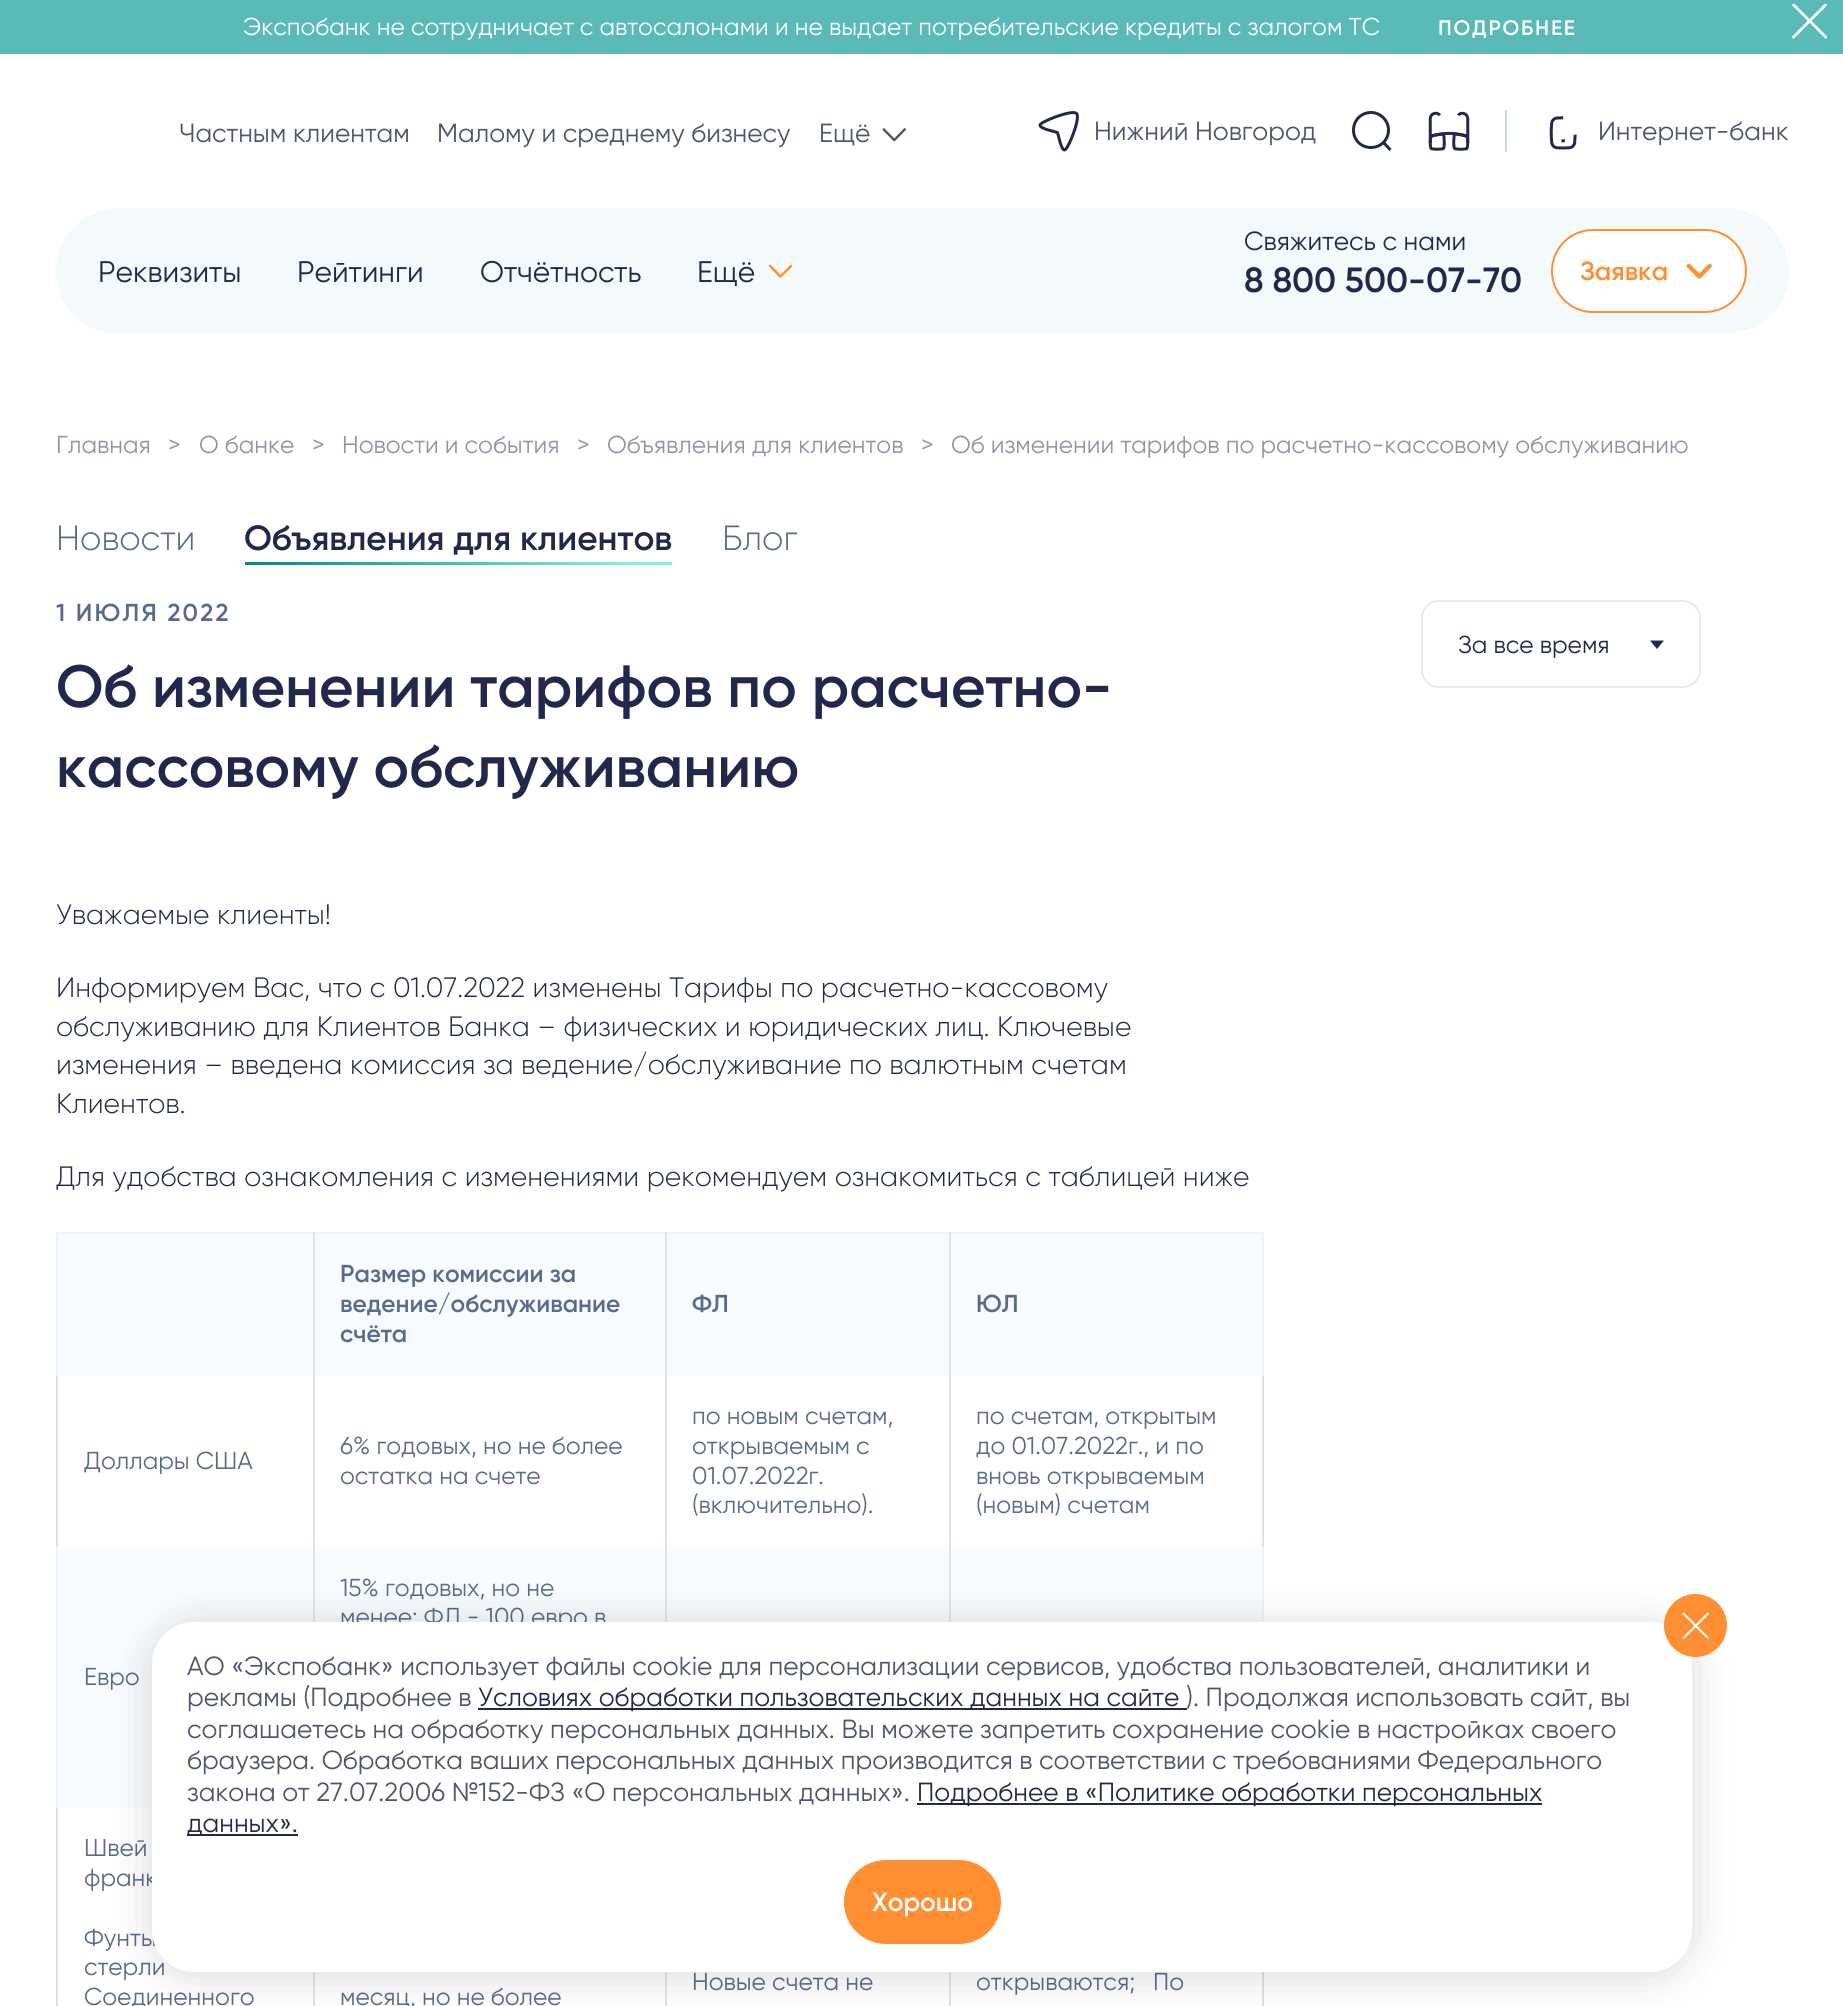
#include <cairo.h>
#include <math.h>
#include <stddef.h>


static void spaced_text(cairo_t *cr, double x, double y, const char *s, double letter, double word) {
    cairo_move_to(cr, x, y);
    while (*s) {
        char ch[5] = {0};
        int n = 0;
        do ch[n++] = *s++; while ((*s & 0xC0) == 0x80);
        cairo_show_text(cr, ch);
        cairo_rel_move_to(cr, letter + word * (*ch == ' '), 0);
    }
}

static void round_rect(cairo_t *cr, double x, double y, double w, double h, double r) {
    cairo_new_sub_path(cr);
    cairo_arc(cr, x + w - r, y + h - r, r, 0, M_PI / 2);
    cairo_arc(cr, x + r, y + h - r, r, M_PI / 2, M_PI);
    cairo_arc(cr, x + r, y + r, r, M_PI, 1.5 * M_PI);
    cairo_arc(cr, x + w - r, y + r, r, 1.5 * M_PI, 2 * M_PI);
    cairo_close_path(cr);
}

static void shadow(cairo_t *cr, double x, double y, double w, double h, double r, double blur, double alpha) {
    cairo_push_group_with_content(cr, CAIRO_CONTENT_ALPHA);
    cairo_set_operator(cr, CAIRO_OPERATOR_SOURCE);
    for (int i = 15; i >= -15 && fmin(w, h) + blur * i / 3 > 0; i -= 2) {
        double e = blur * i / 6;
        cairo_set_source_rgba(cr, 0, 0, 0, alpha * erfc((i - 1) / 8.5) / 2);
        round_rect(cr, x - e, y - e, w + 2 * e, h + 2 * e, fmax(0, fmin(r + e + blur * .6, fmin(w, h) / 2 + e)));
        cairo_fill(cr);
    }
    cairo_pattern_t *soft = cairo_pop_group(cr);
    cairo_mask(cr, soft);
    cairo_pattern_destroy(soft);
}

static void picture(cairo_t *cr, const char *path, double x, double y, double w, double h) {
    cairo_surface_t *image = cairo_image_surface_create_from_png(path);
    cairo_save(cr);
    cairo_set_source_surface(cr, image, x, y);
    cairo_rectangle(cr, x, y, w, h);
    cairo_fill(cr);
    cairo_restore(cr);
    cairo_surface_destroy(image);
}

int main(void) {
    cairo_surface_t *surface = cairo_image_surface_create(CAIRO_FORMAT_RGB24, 1843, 2006);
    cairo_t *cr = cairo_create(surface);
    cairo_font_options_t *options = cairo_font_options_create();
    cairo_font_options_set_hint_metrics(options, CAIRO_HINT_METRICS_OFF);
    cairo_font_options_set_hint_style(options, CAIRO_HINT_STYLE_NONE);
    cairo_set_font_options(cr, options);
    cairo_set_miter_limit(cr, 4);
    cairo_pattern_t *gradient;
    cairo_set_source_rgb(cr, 1, 1, 1);
    cairo_paint(cr);
    cairo_set_source_rgb(cr, 0.353, 0.729, 0.722);
    cairo_rectangle(cr, 0, 0, 1843, 54);
    cairo_fill(cr);
    cairo_select_font_face(cr, "Gilroy", CAIRO_FONT_SLANT_NORMAL, CAIRO_FONT_WEIGHT_NORMAL);
    cairo_set_font_size(cr, 24.5);
    cairo_set_source_rgb(cr, 1, 1, 1);
    cairo_move_to(cr, 243, 35);
    cairo_show_text(cr, "Экспобанк не сотрудничает с автосалонами и не выдает потребительские кредиты с залогом ТС");
    cairo_select_font_face(cr, "Gilroy SemiBold", CAIRO_FONT_SLANT_NORMAL, CAIRO_FONT_WEIGHT_NORMAL);
    cairo_set_font_size(cr, 21);
    spaced_text(cr, 1438, 35, "ПОДРОБНЕЕ", 1.75, 0);
    picture(cr, "img1.png", 1792, 4, 35, 35);
    cairo_select_font_face(cr, "Gilroy", CAIRO_FONT_SLANT_NORMAL, CAIRO_FONT_WEIGHT_NORMAL);
    cairo_set_font_size(cr, 26.25);
    cairo_set_source_rgb(cr, 0.306, 0.325, 0.435);
    cairo_move_to(cr, 179, 142);
    cairo_show_text(cr, "Частным клиентам");
    cairo_move_to(cr, 437, 142);
    cairo_show_text(cr, "Малому и среднему бизнесу");
    cairo_move_to(cr, 819, 142);
    cairo_show_text(cr, "Ещё");
    picture(cr, "img2.png", 882, 128, 24, 14);
    cairo_new_path(cr);
    cairo_move_to(cr, 1040, 125);
    cairo_curve_to(cr, 1040, 122, 1072.5, 109, 1076.5, 113.5);
    cairo_curve_to(cr, 1081, 117.5, 1068, 150, 1064.5, 150);
    cairo_curve_to(cr, 1061, 150, 1058.5, 135, 1057.5, 132.5);
    cairo_curve_to(cr, 1055, 131.5, 1040, 129, 1040, 125);
    cairo_close_path(cr);
    cairo_set_source_rgb(cr, 0.133, 0.157, 0.294);
    cairo_set_line_width(cr, 3);
    cairo_stroke(cr);
    cairo_set_source_rgb(cr, 0.306, 0.325, 0.435);
    cairo_move_to(cr, 1094, 140);
    cairo_show_text(cr, "Нижний Новгород");
    cairo_new_path(cr);
    cairo_move_to(cr, 1371, 147.5);
    cairo_curve_to(cr, 1380.5, 147.5, 1388.5, 140, 1388.5, 130);
    cairo_curve_to(cr, 1388.5, 120.5, 1380.5, 112.5, 1371, 112.5);
    cairo_curve_to(cr, 1361, 112.5, 1353.5, 120.5, 1353.5, 130);
    cairo_curve_to(cr, 1353.5, 140, 1361, 147.5, 1371, 147.5);
    cairo_close_path(cr);
    cairo_move_to(cr, 1390.5, 150);
    cairo_line_to(cr, 1383.5, 142.5);
    cairo_set_source_rgb(cr, 0.133, 0.157, 0.294);
    cairo_stroke(cr);
    picture(cr, "img3.png", 1428, 111, 42, 40);
    cairo_set_source_rgb(cr, 0.792, 0.843, 0.878);
    cairo_rectangle(cr, 1505, 110, 2, 42);
    cairo_fill(cr);
    picture(cr, "img4.png", 1549, 116, 28, 34);
    cairo_set_source_rgb(cr, 0.306, 0.325, 0.435);
    cairo_move_to(cr, 1598, 140);
    cairo_show_text(cr, "Интернет-банк");
    cairo_set_source_rgb(cr, 0.957, 0.976, 0.988);
    round_rect(cr, 56, 208, 1733, 126, 63);
    cairo_fill(cr);
    cairo_set_font_size(cr, 29.75);
    cairo_set_source_rgb(cr, 0.133, 0.157, 0.294);
    cairo_move_to(cr, 98, 282);
    cairo_show_text(cr, "Реквизиты");
    cairo_move_to(cr, 297, 282);
    cairo_show_text(cr, "Рейтинги");
    cairo_move_to(cr, 480, 282);
    cairo_show_text(cr, "Отчётность");
    cairo_move_to(cr, 697, 282);
    cairo_show_text(cr, "Ещё");
    picture(cr, "img5.png", 768, 264, 25, 14);
    cairo_set_font_size(cr, 26.25);
    cairo_move_to(cr, 1244, 250);
    cairo_show_text(cr, "Свяжитесь с нами");
    cairo_select_font_face(cr, "Gilroy SemiBold", CAIRO_FONT_SLANT_NORMAL, CAIRO_FONT_WEIGHT_NORMAL);
    cairo_set_font_size(cr, 35);
    cairo_move_to(cr, 1244, 292);
    cairo_show_text(cr, "8 800 500-07-70");
    cairo_set_source_rgb(cr, 1, 1, 1);
    round_rect(cr, 1552, 230, 194, 82, 41);
    cairo_fill_preserve(cr);
    cairo_set_source_rgb(cr, 1, 0.561, 0.196);
    cairo_set_line_width(cr, 2);
    cairo_stroke(cr);
    cairo_set_font_size(cr, 26.25);
    cairo_move_to(cr, 1580, 280);
    cairo_show_text(cr, "Заявка");
    picture(cr, "img6.png", 1686, 263, 26, 16);
    cairo_select_font_face(cr, "Gilroy", CAIRO_FONT_SLANT_NORMAL, CAIRO_FONT_WEIGHT_NORMAL);
    cairo_set_font_size(cr, 24.5);
    cairo_set_source_rgb(cr, 0.569, 0.58, 0.647);
    cairo_move_to(cr, 56, 453);
    cairo_show_text(cr, "Главная");
    cairo_move_to(cr, 168, 453);
    cairo_show_text(cr, ">");
    cairo_move_to(cr, 199, 453);
    cairo_show_text(cr, "О банке");
    cairo_move_to(cr, 312, 453);
    cairo_show_text(cr, ">");
    cairo_move_to(cr, 342, 453);
    cairo_show_text(cr, "Новости и события");
    cairo_move_to(cr, 577, 453);
    cairo_show_text(cr, ">");
    cairo_move_to(cr, 607, 453);
    cairo_show_text(cr, "Объявления для клиентов");
    cairo_move_to(cr, 921, 453);
    cairo_show_text(cr, ">");
    cairo_move_to(cr, 951, 453);
    cairo_show_text(cr, "Об изменении тарифов по расчетно-кассовому обслуживанию");
    cairo_select_font_face(cr, "Gilroy Light", CAIRO_FONT_SLANT_NORMAL, CAIRO_FONT_WEIGHT_NORMAL);
    cairo_set_font_size(cr, 35);
    cairo_set_source_rgb(cr, 0.349, 0.416, 0.549);
    cairo_move_to(cr, 56, 550);
    cairo_show_text(cr, "Новости");
    cairo_select_font_face(cr, "Gilroy SemiBold", CAIRO_FONT_SLANT_NORMAL, CAIRO_FONT_WEIGHT_NORMAL);
    cairo_set_source_rgb(cr, 0.133, 0.157, 0.294);
    cairo_move_to(cr, 244, 550);
    cairo_show_text(cr, "Объявления для клиентов");
    gradient = cairo_pattern_create_linear(454, 594, 462, 534);
    cairo_pattern_add_color_stop_rgba(gradient, 0, 0.024, 0.498, 0.549, 1);
    cairo_pattern_add_color_stop_rgba(gradient, 0.34, 0.137, 0.69, 0.69, 1);
    cairo_pattern_add_color_stop_rgba(gradient, 0.88, 0.502, 0.945, 0.867, 1);
    cairo_set_source(cr, gradient);
    cairo_pattern_destroy(gradient);
    cairo_rectangle(cr, 245, 562, 427, 3);
    cairo_fill(cr);
    cairo_select_font_face(cr, "Gilroy Light", CAIRO_FONT_SLANT_NORMAL, CAIRO_FONT_WEIGHT_NORMAL);
    cairo_set_source_rgb(cr, 0.349, 0.416, 0.549);
    cairo_move_to(cr, 722, 550);
    cairo_show_text(cr, "Блог");
    cairo_select_font_face(cr, "Gilroy SemiBold", CAIRO_FONT_SLANT_NORMAL, CAIRO_FONT_WEIGHT_NORMAL);
    cairo_set_font_size(cr, 24.5);
    spaced_text(cr, 56, 621, "1 ИЮЛЯ 2022", 2.25, 0);
    cairo_set_font_size(cr, 59.5);
    cairo_set_source_rgb(cr, 0.133, 0.157, 0.294);
    cairo_move_to(cr, 56, 707);
    cairo_show_text(cr, "Об изменении тарифов по расчетно-");
    cairo_move_to(cr, 56, 787);
    cairo_show_text(cr, "кассовому обслуживанию");
    cairo_select_font_face(cr, "Gilroy Light", CAIRO_FONT_SLANT_NORMAL, CAIRO_FONT_WEIGHT_NORMAL);
    cairo_set_font_size(cr, 28);
    cairo_move_to(cr, 56, 924);
    cairo_show_text(cr, "Уважаемые клиенты!");
    cairo_move_to(cr, 56, 997);
    cairo_show_text(cr, "Информируем Вас, что с 01.07.2022 изменены Тарифы по расчетно-кассовому");
    cairo_move_to(cr, 56, 1036);
    cairo_show_text(cr, "обслуживанию для Клиентов Банка – физических и юридических лиц. Ключевые");
    cairo_move_to(cr, 56, 1074);
    cairo_show_text(cr, "изменения – введена комиссия за ведение/обслуживание по валютным счетам");
    cairo_move_to(cr, 56, 1113);
    cairo_show_text(cr, "Клиентов.");
    cairo_move_to(cr, 56, 1186);
    cairo_show_text(cr, "Для удобства ознакомления с изменениями рекомендуем ознакомиться с таблицей ниже");
    cairo_set_source_rgb(cr, 0.969, 0.984, 0.992);
    cairo_rectangle(cr, 58, 1234, 255, 142);
    cairo_fill(cr);
    cairo_set_source_rgb(cr, 0.929, 0.949, 0.969);
    cairo_rectangle(cr, 56, 1232, 1208, 2);
    cairo_fill(cr);
    cairo_set_source_rgb(cr, 0.863, 0.886, 0.922);
    cairo_rectangle(cr, 313, 1374, 2, 248);
    cairo_fill(cr);
    cairo_rectangle(cr, 313, 1232, 2, 144);
    cairo_fill(cr);
    cairo_rectangle(cr, 56, 1806, 2, 200);
    cairo_fill(cr);
    cairo_set_source_rgb(cr, 0.929, 0.949, 0.969);
    cairo_rectangle(cr, 56, 1545, 2, 263);
    cairo_fill(cr);
    cairo_set_source_rgb(cr, 0.863, 0.886, 0.922);
    cairo_rectangle(cr, 56, 1374, 2, 173);
    cairo_fill(cr);
    cairo_set_source_rgb(cr, 0.929, 0.949, 0.969);
    cairo_rectangle(cr, 56, 1232, 2, 144);
    cairo_fill(cr);
    cairo_set_source_rgb(cr, 0.969, 0.984, 0.992);
    cairo_rectangle(cr, 315, 1234, 350, 142);
    cairo_fill(cr);
    cairo_set_source_rgb(cr, 0.863, 0.886, 0.922);
    cairo_rectangle(cr, 665, 1374, 2, 248);
    cairo_fill(cr);
    cairo_rectangle(cr, 665, 1232, 2, 144);
    cairo_fill(cr);
    cairo_select_font_face(cr, "Gilroy SemiBold", CAIRO_FONT_SLANT_NORMAL, CAIRO_FONT_WEIGHT_NORMAL);
    cairo_set_font_size(cr, 24.5);
    cairo_set_source_rgb(cr, 0.349, 0.416, 0.549);
    cairo_move_to(cr, 340, 1282);
    cairo_show_text(cr, "Размер комиссии за");
    cairo_move_to(cr, 340, 1312);
    cairo_show_text(cr, "ведение/обслуживание");
    cairo_move_to(cr, 340, 1342);
    cairo_show_text(cr, "счёта");
    cairo_set_source_rgb(cr, 0.969, 0.984, 0.992);
    cairo_rectangle(cr, 667, 1234, 282, 142);
    cairo_fill(cr);
    cairo_set_source_rgb(cr, 0.863, 0.886, 0.922);
    cairo_rectangle(cr, 949, 1374, 2, 248);
    cairo_fill(cr);
    cairo_rectangle(cr, 949, 1232, 2, 144);
    cairo_fill(cr);
    cairo_set_source_rgb(cr, 0.349, 0.416, 0.549);
    cairo_move_to(cr, 692, 1312);
    cairo_show_text(cr, "ФЛ");
    cairo_set_source_rgb(cr, 0.969, 0.984, 0.992);
    cairo_rectangle(cr, 951, 1234, 311, 142);
    cairo_fill(cr);
    cairo_set_source_rgb(cr, 0.929, 0.949, 0.969);
    cairo_rectangle(cr, 1262, 1545, 2, 77);
    cairo_fill(cr);
    cairo_set_source_rgb(cr, 0.863, 0.886, 0.922);
    cairo_rectangle(cr, 1262, 1374, 2, 173);
    cairo_fill(cr);
    cairo_set_source_rgb(cr, 0.929, 0.949, 0.969);
    cairo_rectangle(cr, 1262, 1232, 2, 144);
    cairo_fill(cr);
    cairo_set_source_rgb(cr, 0.349, 0.416, 0.549);
    cairo_move_to(cr, 976, 1312);
    cairo_show_text(cr, "ЮЛ");
    cairo_select_font_face(cr, "Gilroy", CAIRO_FONT_SLANT_NORMAL, CAIRO_FONT_WEIGHT_NORMAL);
    cairo_move_to(cr, 84, 1469);
    cairo_show_text(cr, "Доллары США");
    cairo_move_to(cr, 340, 1454);
    cairo_show_text(cr, "6% годовых, но не более");
    cairo_move_to(cr, 340, 1484);
    cairo_show_text(cr, "остатка на счете");
    cairo_move_to(cr, 692, 1424);
    cairo_show_text(cr, "по новым счетам,");
    cairo_move_to(cr, 692, 1454);
    cairo_show_text(cr, "открываемым с");
    cairo_move_to(cr, 692, 1484);
    cairo_show_text(cr, "01.07.2022г.");
    cairo_move_to(cr, 692, 1513);
    cairo_show_text(cr, "(включительно).");
    cairo_move_to(cr, 976, 1424);
    cairo_show_text(cr, "по счетам, открытым");
    cairo_move_to(cr, 976, 1454);
    cairo_show_text(cr, "до 01.07.2022г., и по");
    cairo_move_to(cr, 976, 1484);
    cairo_show_text(cr, "вновь открываемым");
    cairo_move_to(cr, 976, 1513);
    cairo_show_text(cr, "(новым) счетам");
    cairo_set_source_rgb(cr, 0.969, 0.984, 0.992);
    cairo_rectangle(cr, 315, 1547, 350, 75);
    cairo_fill(cr);
    cairo_set_source_rgb(cr, 0.349, 0.416, 0.549);
    cairo_move_to(cr, 340, 1596);
    cairo_show_text(cr, "15% годовых, но не");
    cairo_move_to(cr, 340, 1625);
    cairo_show_text(cr, "менее: ФЛ - 100 евро в");
    cairo_set_source_rgb(cr, 0.969, 0.984, 0.992);
    cairo_rectangle(cr, 667, 1547, 282, 75);
    cairo_fill(cr);
    cairo_rectangle(cr, 951, 1547, 311, 75);
    cairo_fill(cr);
    cairo_rectangle(cr, 58, 1547, 255, 261);
    cairo_fill(cr);
    cairo_set_source_rgb(cr, 0.349, 0.416, 0.549);
    cairo_move_to(cr, 84, 1685);
    cairo_show_text(cr, "Евро");
    cairo_set_source_rgb(cr, 0.863, 0.886, 0.922);
    cairo_rectangle(cr, 313, 1972, 2, 34);
    cairo_fill(cr);
    cairo_set_source_rgb(cr, 0.349, 0.416, 0.549);
    cairo_move_to(cr, 84, 1856);
    cairo_show_text(cr, "Швей");
    cairo_move_to(cr, 84, 1886);
    cairo_show_text(cr, "франк");
    cairo_move_to(cr, 84, 1946);
    cairo_show_text(cr, "Фунты");
    cairo_move_to(cr, 84, 1975);
    cairo_show_text(cr, "стерли");
    cairo_move_to(cr, 84, 2005);
    cairo_show_text(cr, "Соединенного");
    cairo_set_source_rgb(cr, 0.863, 0.886, 0.922);
    cairo_rectangle(cr, 665, 1972, 2, 34);
    cairo_fill(cr);
    cairo_set_source_rgb(cr, 0.349, 0.416, 0.549);
    cairo_move_to(cr, 340, 2005);
    cairo_show_text(cr, "месяц, но не более");
    cairo_set_source_rgb(cr, 0.863, 0.886, 0.922);
    cairo_rectangle(cr, 949, 1972, 2, 34);
    cairo_fill(cr);
    cairo_set_source_rgb(cr, 0.349, 0.416, 0.549);
    cairo_move_to(cr, 692, 1990);
    cairo_show_text(cr, "Новые счета не");
    cairo_set_source_rgb(cr, 0.863, 0.886, 0.922);
    cairo_rectangle(cr, 1262, 1972, 2, 34);
    cairo_fill(cr);
    cairo_set_source_rgb(cr, 0.349, 0.416, 0.549);
    cairo_move_to(cr, 976, 1990);
    cairo_show_text(cr, "открываются;");
    cairo_move_to(cr, 1153, 1990);
    cairo_show_text(cr, "По");
    round_rect(cr, 1422, 601, 278, 86, 17);
    cairo_set_source_rgb(cr, 0.902, 0.925, 0.933);
    cairo_stroke(cr);
    cairo_set_source_rgb(cr, 0.133, 0.157, 0.294);
    cairo_move_to(cr, 1458, 653);
    cairo_show_text(cr, "За все время");
    cairo_new_path(cr);
    cairo_move_to(cr, 1650, 640.5);
    cairo_line_to(cr, 1664, 640.5);
    cairo_line_to(cr, 1657, 649);
    cairo_close_path(cr);
    cairo_fill(cr);
    cairo_set_source_rgb(cr, 0, 0, 0);
    shadow(cr, 152, 1626, 1540, 350, 42, 21, 0.15);
    cairo_set_source_rgb(cr, 1, 1, 1);
    round_rect(cr, 152, 1622, 1540, 350, 42);
    cairo_fill(cr);
    cairo_set_source_rgb(cr, 1, 0.561, 0.196);
    cairo_arc(cr, 1695.5, 1625.5, 31.5, 0, 2 * M_PI);
    cairo_fill(cr);
    cairo_new_path(cr);
    cairo_move_to(cr, 1708, 1638);
    cairo_line_to(cr, 1683.5, 1613.5);
    cairo_move_to(cr, 1683.5, 1638);
    cairo_line_to(cr, 1708, 1613.5);
    cairo_set_source_rgb(cr, 1, 1, 1);
    cairo_set_line_width(cr, 2.1);
    cairo_set_line_cap(cr, CAIRO_LINE_CAP_ROUND);
    cairo_stroke(cr);
    cairo_set_font_size(cr, 26.25);
    cairo_set_source_rgb(cr, 0.306, 0.325, 0.435);
    cairo_move_to(cr, 187, 1675);
    cairo_show_text(cr, "АО «Экспобанк» использует файлы cookie для персонализации сервисов, удобства пользователей, аналитики и");
    cairo_move_to(cr, 187, 1706);
    cairo_show_text(cr, "рекламы (Подробнее в");
    cairo_set_source_rgb(cr, 0.133, 0.157, 0.294);
    cairo_rectangle(cr, 478, 1708, 709, 2);
    cairo_fill(cr);
    cairo_move_to(cr, 478, 1706);
    cairo_show_text(cr, "Условиях обработки пользовательских данных на сайте");
    cairo_set_source_rgb(cr, 0.306, 0.325, 0.435);
    cairo_move_to(cr, 1186, 1706);
    cairo_show_text(cr, "). Продолжая использовать сайт, вы");
    cairo_move_to(cr, 187, 1738);
    cairo_show_text(cr, "соглашаетесь на обработку персональных данных. Вы можете запретить сохранение cookie в настройках своего");
    cairo_move_to(cr, 187, 1769);
    cairo_show_text(cr, "браузера. Обработка ваших персональных данных производится в соответствии с требованиями Федерального");
    cairo_move_to(cr, 187, 1801);
    cairo_show_text(cr, "закона от 27.07.2006 №152-ФЗ «О персональных данных».");
    cairo_set_source_rgb(cr, 0.133, 0.157, 0.294);
    cairo_rectangle(cr, 917, 1803, 625, 2);
    cairo_fill(cr);
    cairo_move_to(cr, 917, 1801);
    cairo_show_text(cr, "Подробнее в «Политике обработки персональных");
    cairo_rectangle(cr, 187, 1834, 111, 2);
    cairo_fill(cr);
    cairo_move_to(cr, 187, 1832);
    cairo_show_text(cr, "данных».");
    cairo_set_source_rgb(cr, 1, 0.561, 0.196);
    round_rect(cr, 844, 1860, 157, 84, 42);
    cairo_fill(cr);
    cairo_select_font_face(cr, "Gilroy SemiBold", CAIRO_FONT_SLANT_NORMAL, CAIRO_FONT_WEIGHT_NORMAL);
    cairo_set_source_rgb(cr, 1, 1, 1);
    cairo_move_to(cr, 872, 1911);
    cairo_show_text(cr, "Хорошо");
    cairo_surface_write_to_png(surface, "page.png");
    cairo_font_options_destroy(options);
    cairo_destroy(cr);
    cairo_surface_destroy(surface);
    return 0;
}
